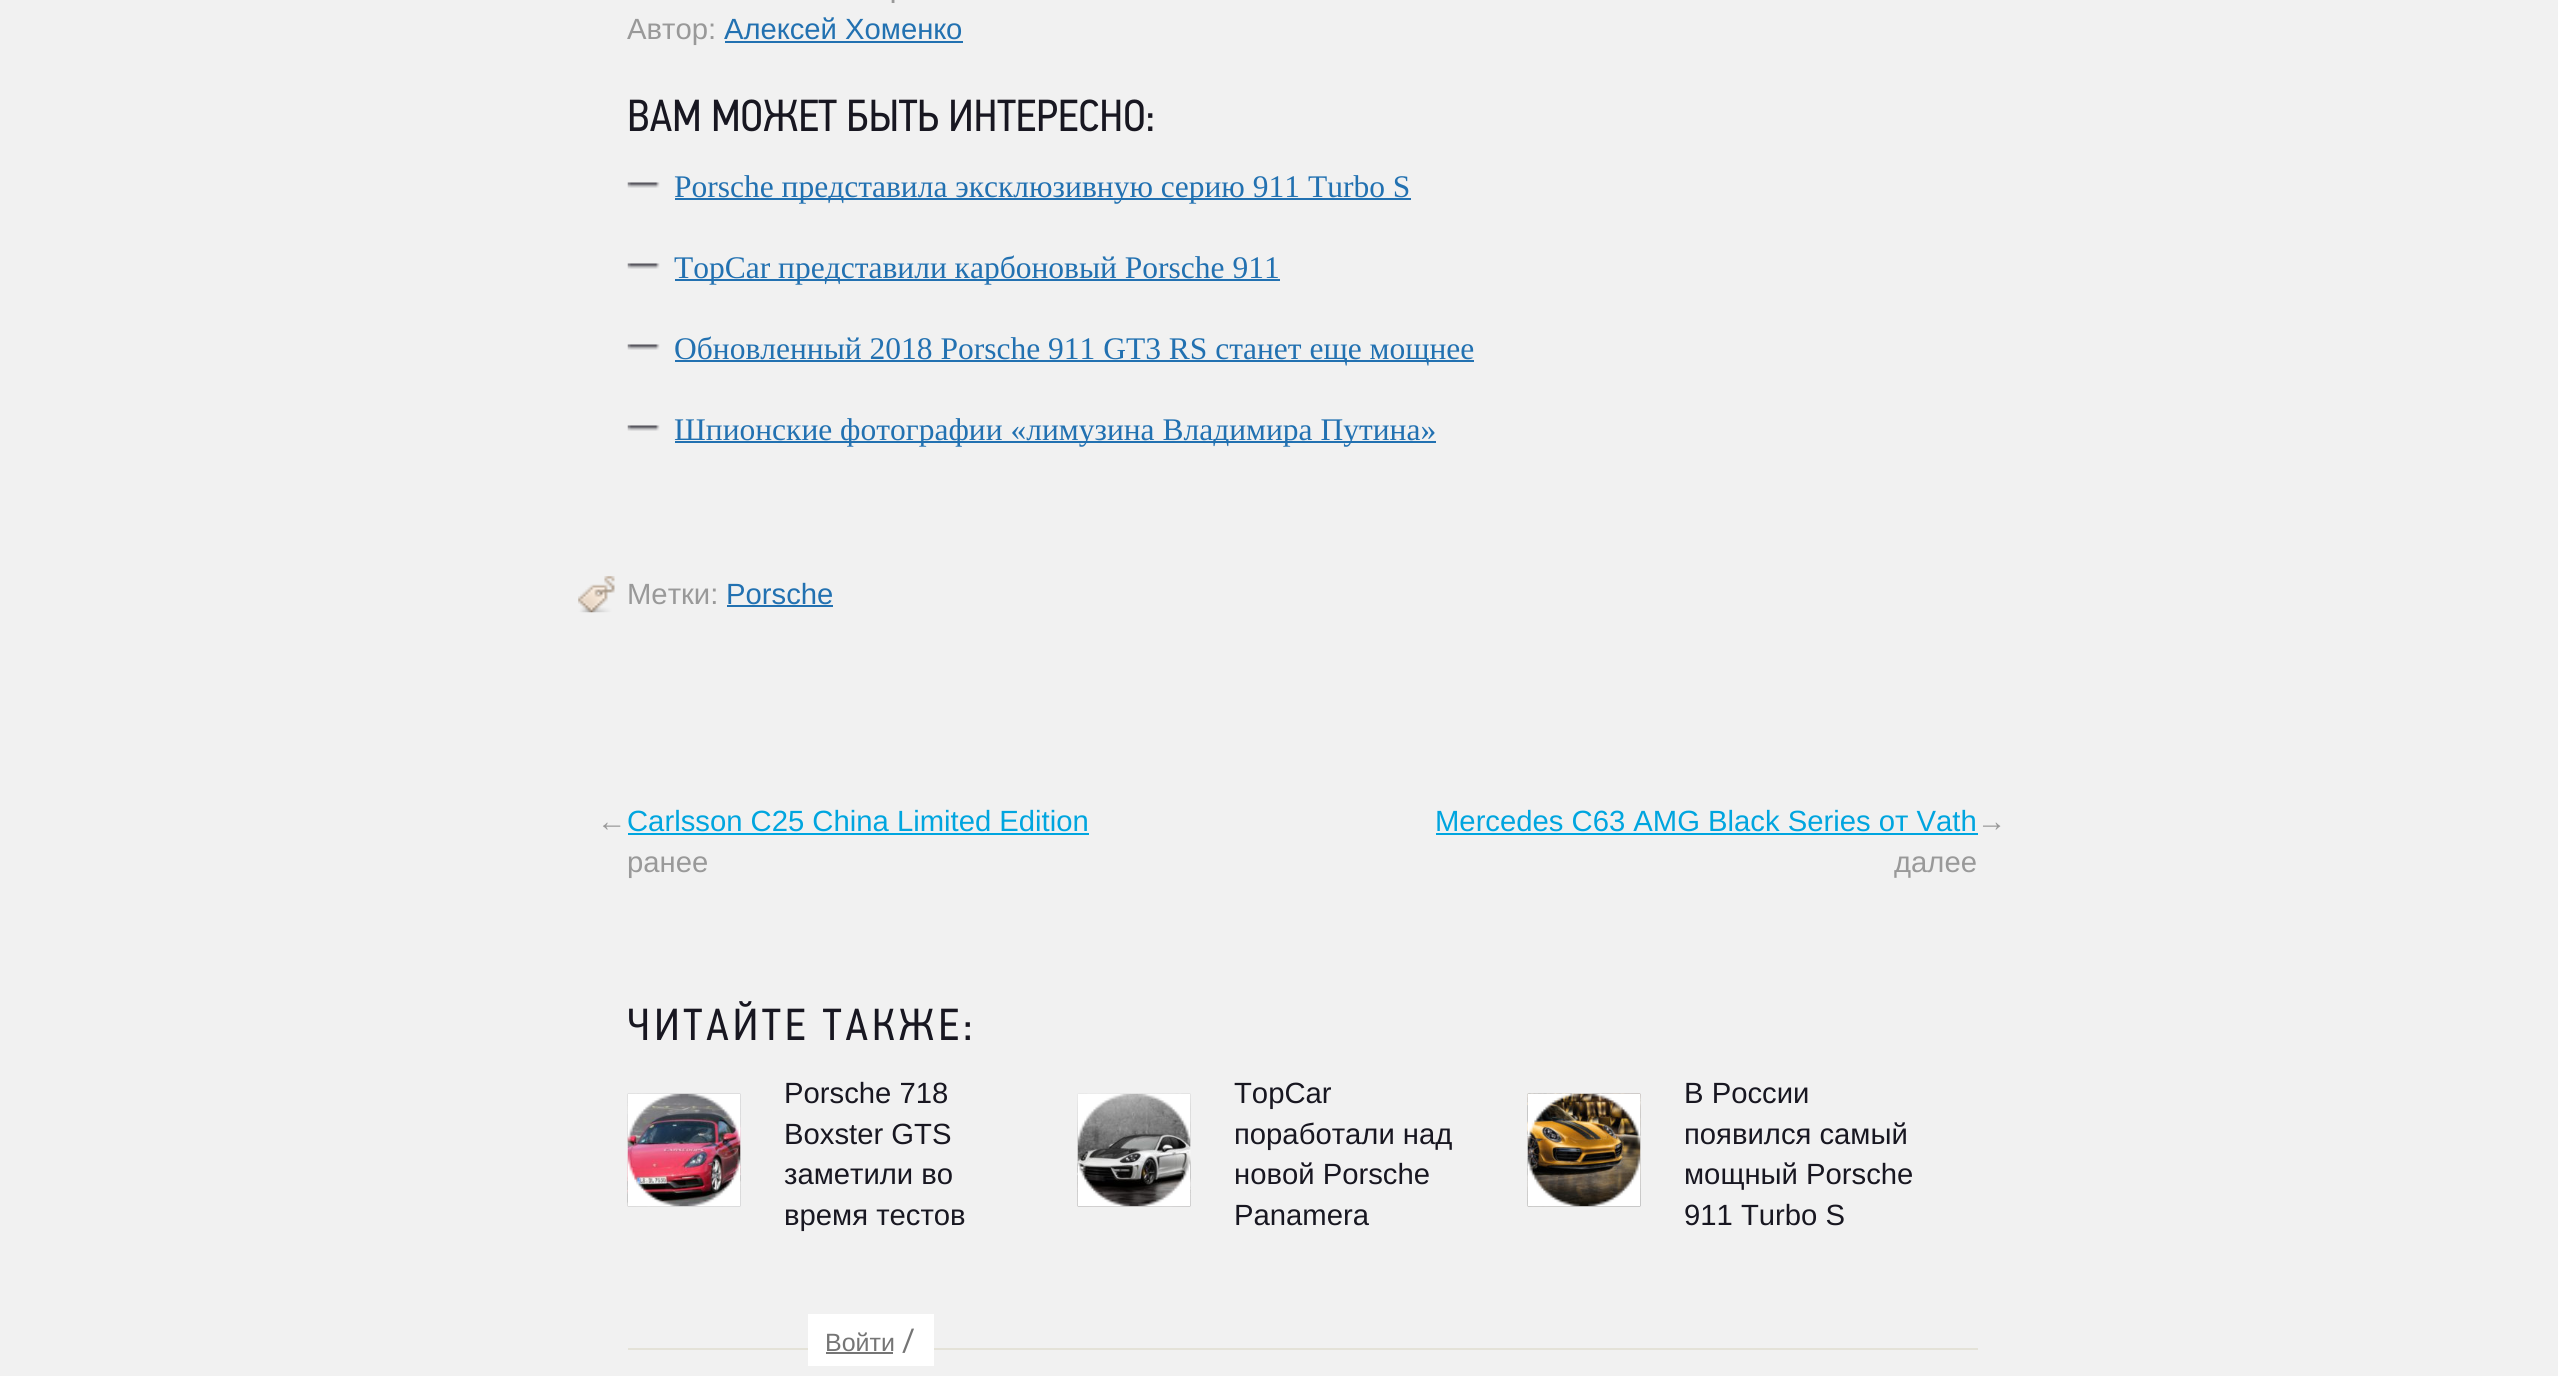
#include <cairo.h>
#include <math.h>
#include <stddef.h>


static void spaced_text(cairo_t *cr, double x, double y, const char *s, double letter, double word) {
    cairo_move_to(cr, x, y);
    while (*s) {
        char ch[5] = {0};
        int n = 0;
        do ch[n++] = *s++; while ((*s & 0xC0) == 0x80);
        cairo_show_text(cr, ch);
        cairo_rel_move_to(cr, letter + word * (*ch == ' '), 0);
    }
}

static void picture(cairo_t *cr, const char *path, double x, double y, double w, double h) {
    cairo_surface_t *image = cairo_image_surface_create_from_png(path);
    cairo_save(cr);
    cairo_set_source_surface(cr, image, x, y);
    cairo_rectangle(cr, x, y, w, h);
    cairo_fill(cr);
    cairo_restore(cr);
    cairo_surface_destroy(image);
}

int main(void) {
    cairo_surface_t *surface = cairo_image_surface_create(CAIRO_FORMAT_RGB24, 2558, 1376);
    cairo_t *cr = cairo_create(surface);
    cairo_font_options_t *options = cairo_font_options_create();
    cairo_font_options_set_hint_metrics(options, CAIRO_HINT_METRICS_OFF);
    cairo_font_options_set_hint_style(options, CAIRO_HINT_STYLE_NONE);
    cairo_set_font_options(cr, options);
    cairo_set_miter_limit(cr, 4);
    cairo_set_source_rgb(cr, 0.945, 0.945, 0.945);
    cairo_paint(cr);
    cairo_select_font_face(cr, "Liberation Sans", CAIRO_FONT_SLANT_NORMAL, CAIRO_FONT_WEIGHT_NORMAL);
    cairo_set_font_size(cr, 29.25);
    cairo_set_source_rgb(cr, 0.6, 0.6, 0.6);
    cairo_move_to(cr, 889, 3);
    cairo_show_text(cr, ".");
    cairo_move_to(cr, 627, 39);
    cairo_show_text(cr, "Автор:");
    cairo_set_source_rgb(cr, 0.133, 0.443, 0.694);
    cairo_move_to(cr, 724, 39);
    cairo_show_text(cr, "Алексей Хоменко");
    cairo_rectangle(cr, 725, 41, 238, 2);
    cairo_fill(cr);
    cairo_select_font_face(cr, "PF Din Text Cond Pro", CAIRO_FONT_SLANT_NORMAL, CAIRO_FONT_WEIGHT_NORMAL);
    cairo_set_font_size(cr, 45);
    cairo_set_source_rgb(cr, 0.094, 0.09, 0.129);
    cairo_move_to(cr, 627, 131);
    cairo_show_text(cr, "ВАМ МОЖЕТ БЫТЬ ИНТЕРЕСНО:");
    picture(cr, "img1.png", 627, 182, 33, 6);
    cairo_set_source_rgb(cr, 0.133, 0.443, 0.694);
    cairo_rectangle(cr, 675, 198, 736, 2);
    cairo_fill(cr);
    cairo_select_font_face(cr, "Liberation Serif", CAIRO_FONT_SLANT_NORMAL, CAIRO_FONT_WEIGHT_NORMAL);
    cairo_set_font_size(cr, 31.5);
    cairo_move_to(cr, 674, 197);
    cairo_show_text(cr, "Porsche представила эксклюзивную серию 911 Turbo S");
    picture(cr, "img1.png", 627, 263, 33, 6);
    cairo_rectangle(cr, 675, 279, 605, 2);
    cairo_fill(cr);
    cairo_move_to(cr, 674, 278);
    cairo_show_text(cr, "TopCar представили карбоновый Porsche 911");
    picture(cr, "img1.png", 627, 344, 33, 6);
    cairo_rectangle(cr, 675, 360, 799, 2);
    cairo_fill(cr);
    cairo_move_to(cr, 674, 359);
    cairo_show_text(cr, "Обновленный 2018 Porsche 911 GT3 RS станет еще мощнее");
    picture(cr, "img1.png", 627, 425, 33, 6);
    cairo_rectangle(cr, 675, 441, 761, 2);
    cairo_fill(cr);
    cairo_move_to(cr, 674, 440);
    cairo_show_text(cr, "Шпионские фотографии «лимузина Владимира Путина»");
    picture(cr, "img2.png", 578, 576, 37, 37);
    cairo_select_font_face(cr, "Liberation Sans", CAIRO_FONT_SLANT_NORMAL, CAIRO_FONT_WEIGHT_NORMAL);
    cairo_set_font_size(cr, 29.25);
    cairo_set_source_rgb(cr, 0.6, 0.6, 0.6);
    cairo_move_to(cr, 627, 604);
    cairo_show_text(cr, "Метки:");
    cairo_set_source_rgb(cr, 0.133, 0.443, 0.694);
    cairo_move_to(cr, 726, 604);
    cairo_show_text(cr, "Porsche");
    cairo_rectangle(cr, 727, 605, 106, 2);
    cairo_fill(cr);
    cairo_set_source_rgb(cr, 0.6, 0.6, 0.6);
    cairo_move_to(cr, 597, 831);
    cairo_show_text(cr, "←");
    cairo_set_source_rgb(cr, 0, 0.647, 0.875);
    cairo_move_to(cr, 627, 831);
    cairo_show_text(cr, "Carlsson C25 China Limited Edition");
    cairo_rectangle(cr, 628, 833, 461, 2);
    cairo_fill(cr);
    cairo_set_source_rgb(cr, 0.6, 0.6, 0.6);
    cairo_move_to(cr, 627, 872);
    cairo_show_text(cr, "ранее");
    cairo_set_source_rgb(cr, 0, 0.647, 0.875);
    cairo_move_to(cr, 1435, 831);
    cairo_show_text(cr, "Mercedes C63 AMG Black Series от Vath");
    cairo_rectangle(cr, 1436, 833, 542, 2);
    cairo_fill(cr);
    cairo_set_source_rgb(cr, 0.6, 0.6, 0.6);
    cairo_move_to(cr, 1977, 831);
    cairo_show_text(cr, "→");
    cairo_move_to(cr, 1894, 872);
    cairo_show_text(cr, "далее");
    cairo_select_font_face(cr, "PF Din Text Cond Pro", CAIRO_FONT_SLANT_NORMAL, CAIRO_FONT_WEIGHT_NORMAL);
    cairo_set_font_size(cr, 45);
    cairo_set_source_rgb(cr, 0.094, 0.09, 0.129);
    spaced_text(cr, 627, 1040, "ЧИТАЙТЕ ТАКЖЕ:", 4.25, 0);
    picture(cr, "img3.png", 627, 1093, 114, 114);
    picture(cr, "img4.png", 627, 1093, 114, 114);
    cairo_select_font_face(cr, "Liberation Sans", CAIRO_FONT_SLANT_NORMAL, CAIRO_FONT_WEIGHT_NORMAL);
    cairo_set_font_size(cr, 29.25);
    cairo_move_to(cr, 784, 1103);
    cairo_show_text(cr, "Porsche 718");
    cairo_move_to(cr, 784, 1144);
    cairo_show_text(cr, "Boxster GTS");
    cairo_move_to(cr, 784, 1184);
    cairo_show_text(cr, "заметили во");
    cairo_move_to(cr, 784, 1225);
    cairo_show_text(cr, "время тестов");
    picture(cr, "img5.png", 1077, 1093, 114, 114);
    picture(cr, "img6.png", 1077, 1093, 114, 114);
    cairo_move_to(cr, 1234, 1103);
    cairo_show_text(cr, "TopCar");
    cairo_move_to(cr, 1234, 1144);
    cairo_show_text(cr, "поработали над");
    cairo_move_to(cr, 1234, 1184);
    cairo_show_text(cr, "новой Porsche");
    cairo_move_to(cr, 1234, 1225);
    cairo_show_text(cr, "Panamera");
    picture(cr, "img7.png", 1527, 1093, 114, 114);
    picture(cr, "img8.png", 1527, 1093, 114, 114);
    cairo_move_to(cr, 1684, 1103);
    cairo_show_text(cr, "В России");
    cairo_move_to(cr, 1684, 1144);
    cairo_show_text(cr, "появился самый");
    cairo_move_to(cr, 1684, 1184);
    cairo_show_text(cr, "мощный Porsche");
    cairo_move_to(cr, 1684, 1225);
    cairo_show_text(cr, "911 Turbo S");
    cairo_set_source_rgb(cr, 0.894, 0.886, 0.847);
    cairo_rectangle(cr, 628, 1348, 1350, 2);
    cairo_fill(cr);
    cairo_set_source_rgb(cr, 1, 1, 1);
    cairo_rectangle(cr, 808, 1314, 126, 52);
    cairo_fill(cr);
    cairo_set_font_size(cr, 25);
    cairo_set_source_rgb(cr, 0.459, 0.459, 0.459);
    cairo_move_to(cr, 825, 1351);
    cairo_show_text(cr, "Войти");
    cairo_rectangle(cr, 826, 1352, 67, 2);
    cairo_fill(cr);
    cairo_select_font_face(cr, "Roboto", CAIRO_FONT_SLANT_NORMAL, CAIRO_FONT_WEIGHT_NORMAL);
    cairo_set_font_size(cr, 31.5);
    cairo_move_to(cr, 902, 1351);
    cairo_show_text(cr, "/");
    cairo_surface_write_to_png(surface, "page.png");
    cairo_font_options_destroy(options);
    cairo_destroy(cr);
    cairo_surface_destroy(surface);
    return 0;
}
